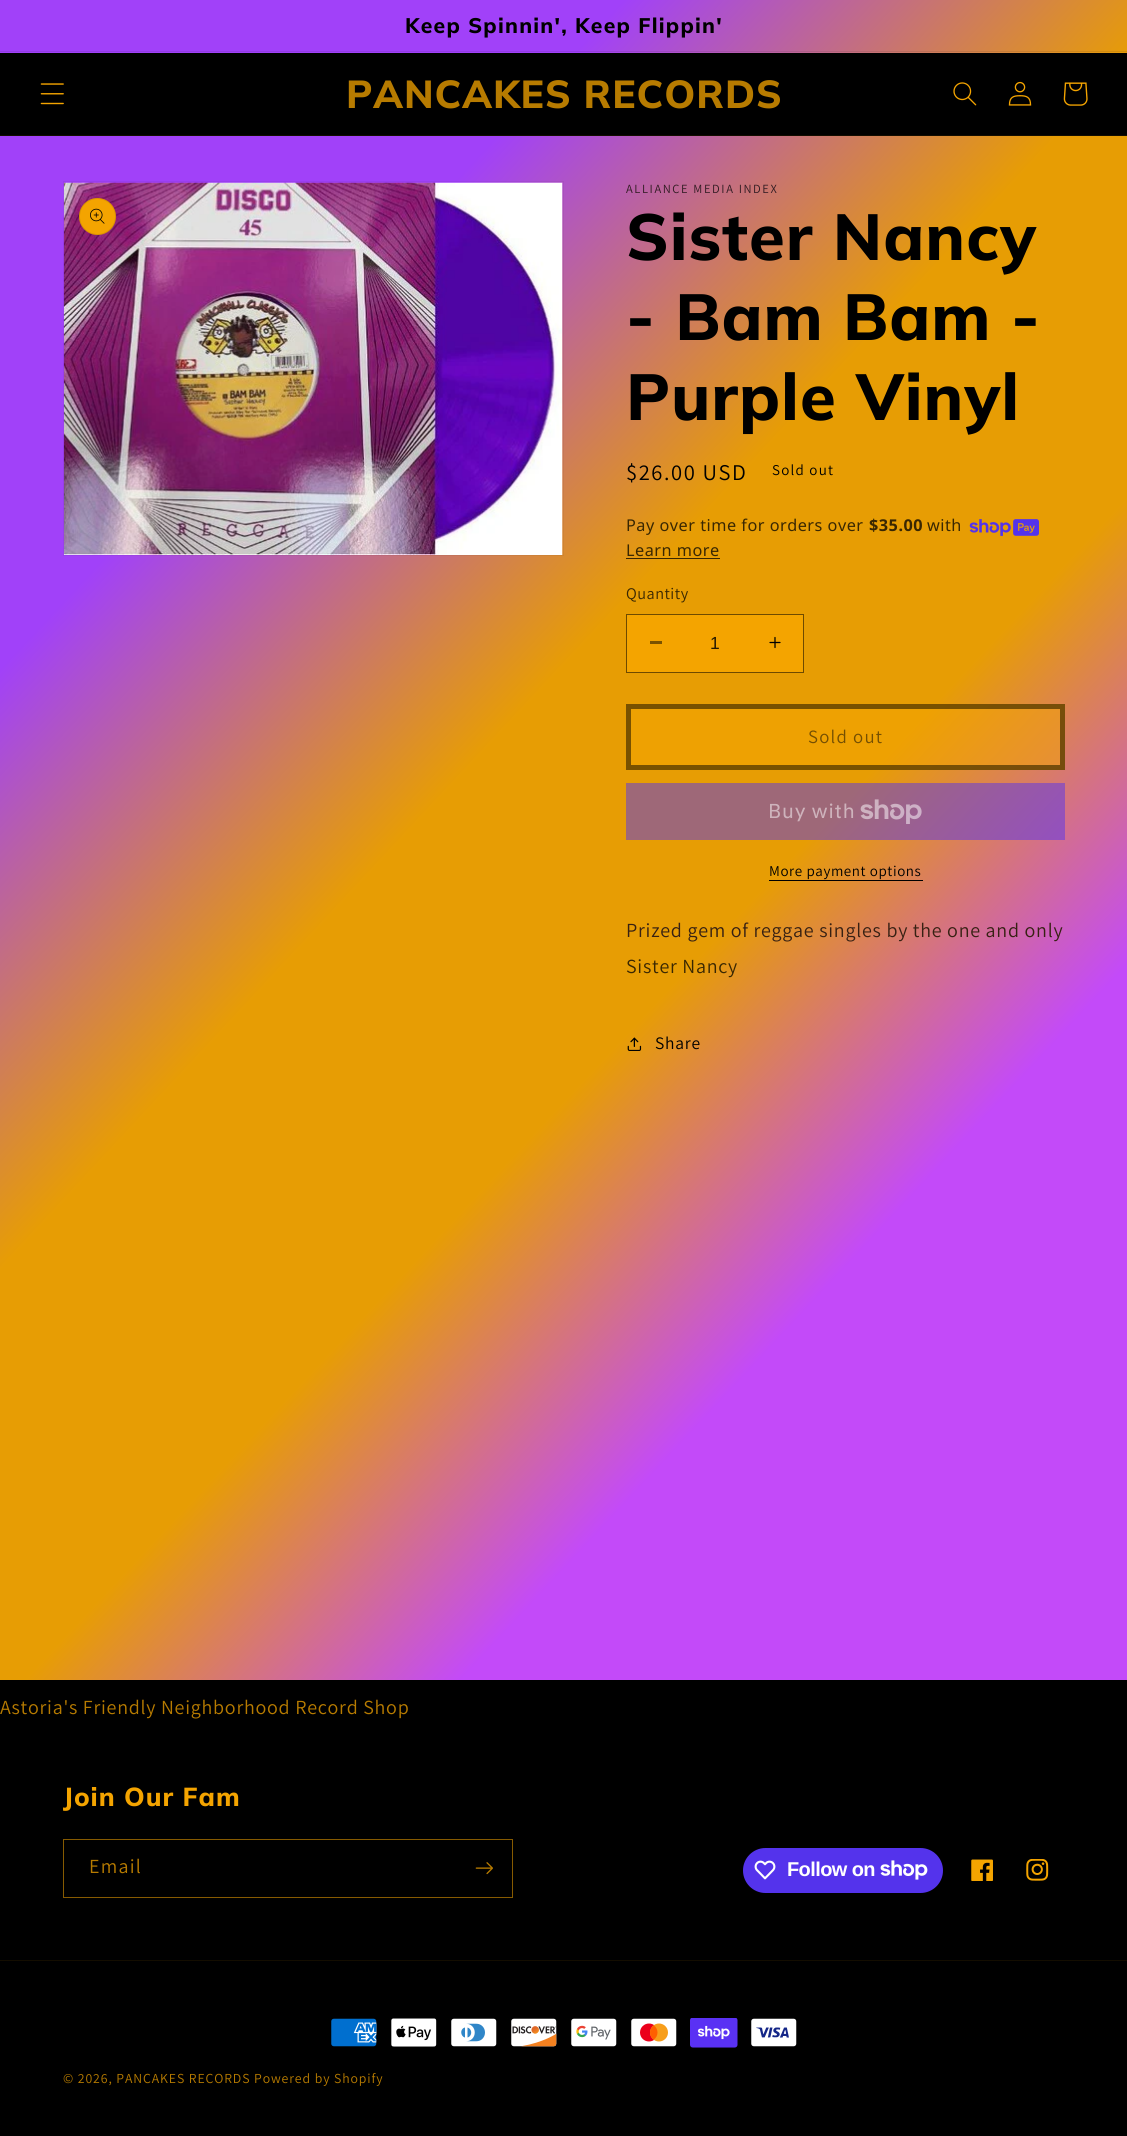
#include <cairo.h>
#include <math.h>
#include <stddef.h>


static void spaced_text(cairo_t *cr, double x, double y, const char *s, double letter, double word) {
    cairo_move_to(cr, x, y);
    while (*s) {
        char ch[5] = {0};
        int n = 0;
        do ch[n++] = *s++; while ((*s & 0xC0) == 0x80);
        cairo_show_text(cr, ch);
        cairo_rel_move_to(cr, letter + word * (*ch == ' '), 0);
    }
}

static void round_rect(cairo_t *cr, double x, double y, double w, double h, double r) {
    cairo_new_sub_path(cr);
    cairo_arc(cr, x + w - r, y + h - r, r, 0, M_PI / 2);
    cairo_arc(cr, x + r, y + h - r, r, M_PI / 2, M_PI);
    cairo_arc(cr, x + r, y + r, r, M_PI, 1.5 * M_PI);
    cairo_arc(cr, x + w - r, y + r, r, 1.5 * M_PI, 2 * M_PI);
    cairo_close_path(cr);
}

static void picture(cairo_t *cr, const char *path, double x, double y, double w, double h) {
    cairo_surface_t *image = cairo_image_surface_create_from_png(path);
    cairo_save(cr);
    cairo_set_source_surface(cr, image, x, y);
    cairo_rectangle(cr, x, y, w, h);
    cairo_fill(cr);
    cairo_restore(cr);
    cairo_surface_destroy(image);
}

int main(void) {
    cairo_surface_t *surface = cairo_image_surface_create(CAIRO_FORMAT_RGB24, 1127, 2136);
    cairo_t *cr = cairo_create(surface);
    cairo_font_options_t *options = cairo_font_options_create();
    cairo_font_options_set_hint_metrics(options, CAIRO_HINT_METRICS_OFF);
    cairo_font_options_set_hint_style(options, CAIRO_HINT_STYLE_NONE);
    cairo_set_font_options(cr, options);
    cairo_set_miter_limit(cr, 4);
    cairo_pattern_t *gradient;
    cairo_set_source_rgb(cr, 1, 1, 1);
    cairo_paint(cr);
    gradient = cairo_pattern_create_linear(-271, 290, 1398, 1846);
    cairo_pattern_add_color_stop_rgba(gradient, 0.2, 0.631, 0.255, 0.976, 1);
    cairo_pattern_add_color_stop_rgba(gradient, 0.38, 0.906, 0.616, 0.016, 1);
    cairo_pattern_add_color_stop_rgba(gradient, 0.51, 0.906, 0.616, 0.016, 1);
    cairo_pattern_add_color_stop_rgba(gradient, 0.65, 0.765, 0.29, 0.976, 1);
    cairo_set_source(cr, gradient);
    cairo_pattern_destroy(gradient);
    cairo_rectangle(cr, 0, 0, 1127, 1680);
    cairo_fill(cr);
    gradient = cairo_pattern_create_linear(-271, 290, 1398, 1846);
    cairo_pattern_add_color_stop_rgba(gradient, 0.2, 0.58, 0.235, 0.898, 1);
    cairo_pattern_add_color_stop_rgba(gradient, 0.38, 0.835, 0.565, 0.016, 1);
    cairo_pattern_add_color_stop_rgba(gradient, 0.51, 0.835, 0.565, 0.016, 1);
    cairo_pattern_add_color_stop_rgba(gradient, 0.65, 0.702, 0.267, 0.898, 1);
    cairo_set_source(cr, gradient);
    cairo_pattern_destroy(gradient);
    cairo_rectangle(cr, 0, 51, 1127, 1);
    cairo_fill(cr);
    gradient = cairo_pattern_create_linear(-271, 290, 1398, 1846);
    cairo_pattern_add_color_stop_rgba(gradient, 0.2, 0.482, 0.227, 0.949, 1);
    cairo_pattern_add_color_stop_rgba(gradient, 0.38, 0.62, 0.408, 0.471, 1);
    cairo_pattern_add_color_stop_rgba(gradient, 0.51, 0.62, 0.408, 0.471, 1);
    cairo_pattern_add_color_stop_rgba(gradient, 0.65, 0.549, 0.247, 0.949, 1);
    cairo_set_source(cr, gradient);
    cairo_pattern_destroy(gradient);
    cairo_rectangle(cr, 626, 783, 439, 57);
    cairo_fill(cr);
    gradient = cairo_pattern_create_linear(-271, 290, 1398, 1846);
    cairo_pattern_add_color_stop_rgba(gradient, 0.2, 0.796, 0.451, 0.49, 1);
    cairo_pattern_add_color_stop_rgba(gradient, 0.38, 0.933, 0.631, 0.008, 1);
    cairo_pattern_add_color_stop_rgba(gradient, 0.51, 0.933, 0.631, 0.008, 1);
    cairo_pattern_add_color_stop_rgba(gradient, 0.65, 0.863, 0.467, 0.49, 1);
    cairo_set_source(cr, gradient);
    cairo_pattern_destroy(gradient);
    cairo_rectangle(cr, 626, 704, 439, 66);
    cairo_fill(cr);
    gradient = cairo_pattern_create_linear(-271, 290, 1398, 1846);
    cairo_pattern_add_color_stop_rgba(gradient, 0.2, 0.157, 0.063, 0.243, 1);
    cairo_pattern_add_color_stop_rgba(gradient, 0.38, 0.227, 0.153, 0.004, 1);
    cairo_pattern_add_color_stop_rgba(gradient, 0.51, 0.227, 0.153, 0.004, 1);
    cairo_pattern_add_color_stop_rgba(gradient, 0.65, 0.192, 0.075, 0.243, 1);
    cairo_set_source(cr, gradient);
    cairo_pattern_destroy(gradient);
    cairo_rectangle(cr, 626, 558, 94, 1);
    cairo_fill(cr);
    cairo_select_font_face(cr, "Muli ExtraBold", CAIRO_FONT_SLANT_NORMAL, CAIRO_FONT_WEIGHT_NORMAL);
    cairo_set_font_size(cr, 21.1);
    cairo_set_source_rgb(cr, 0, 0, 0);
    spaced_text(cr, 405, 33, "Keep Spinnin', Keep Flippin'", 1.25, 0);
    cairo_rectangle(cr, 0, 53, 1127, 82);
    cairo_fill(cr);
    cairo_set_source_rgb(cr, 0.078, 0.051, 0);
    cairo_rectangle(cr, 0, 135, 1127, 1);
    cairo_fill(cr);
    picture(cr, "img1.png", 40, 83, 24, 22);
    cairo_set_font_size(cr, 39);
    cairo_set_source_rgb(cr, 0.718, 0.482, 0);
    spaced_text(cr, 346, 108, "PANCAKES RECORDS", 1, 0);
    picture(cr, "img2.png", 953, 82, 24, 24);
    picture(cr, "img3.png", 1008, 81, 24, 25);
    picture(cr, "img4.png", 1063, 82, 25, 24);
    cairo_rectangle(cr, 63.5, 181.5, 500, 374);
    cairo_set_source_rgba(cr, 0, 0, 0, 0.05);
    cairo_set_line_width(cr, 1);
    cairo_stroke(cr);
    picture(cr, "img5.png", 63, 182, 500, 373);
    cairo_set_source_rgb(cr, 0.957, 0.643, 0);
    cairo_arc(cr, 97.5, 216.5, 18.5, 0, 2 * M_PI);
    cairo_fill(cr);
    cairo_arc(cr, 97.5, 216.5, 18, 0, 2 * M_PI);
    cairo_set_source_rgba(cr, 0, 0, 0, 0.1);
    cairo_stroke(cr);
    picture(cr, "img6.png", 90, 208, 15, 16);
    cairo_select_font_face(cr, "Assistant", CAIRO_FONT_SLANT_NORMAL, CAIRO_FONT_WEIGHT_NORMAL);
    cairo_set_font_size(cr, 12.5);
    cairo_set_source_rgb(cr, 0.188, 0.106, 0.133);
    spaced_text(cr, 626, 193, "ALLIANCE MEDIA INDEX", 1.6, 0);
    cairo_select_font_face(cr, "Muli ExtraBold", CAIRO_FONT_SLANT_NORMAL, CAIRO_FONT_WEIGHT_NORMAL);
    cairo_set_font_size(cr, 65);
    cairo_set_source_rgb(cr, 0, 0, 0);
    spaced_text(cr, 626, 260, "Sister Nancy", 1, 0);
    spaced_text(cr, 626, 340, "- Bam Bam -", 1, 0);
    spaced_text(cr, 626, 420, "Purple Vinyl", 1, 0);
    cairo_select_font_face(cr, "Assistant", CAIRO_FONT_SLANT_NORMAL, CAIRO_FONT_WEIGHT_NORMAL);
    cairo_set_font_size(cr, 22.5);
    spaced_text(cr, 626, 480, "$26.00 USD", 1.6, 0);
    cairo_set_font_size(cr, 15);
    spaced_text(cr, 772, 475, "Sold out", 1.25, 0);
    cairo_select_font_face(cr, "Noto Sans", CAIRO_FONT_SLANT_NORMAL, CAIRO_FONT_WEIGHT_NORMAL);
    cairo_set_font_size(cr, 16.25);
    cairo_set_source_rgb(cr, 0.224, 0.153, 0.008);
    spaced_text(cr, 626, 531, "Pay over time for orders over", 0.5, 0);
    cairo_select_font_face(cr, "Noto Sans", CAIRO_FONT_SLANT_NORMAL, CAIRO_FONT_WEIGHT_BOLD);
    spaced_text(cr, 869, 531, "$35.00", 0.5, 0);
    cairo_select_font_face(cr, "Noto Sans", CAIRO_FONT_SLANT_NORMAL, CAIRO_FONT_WEIGHT_NORMAL);
    spaced_text(cr, 927, 531, "with", 0.5, 0);
    picture(cr, "img7.png", 969, 519, 70, 17);
    spaced_text(cr, 626, 556, "Learn more", 0.5, 0);
    cairo_select_font_face(cr, "Assistant", CAIRO_FONT_SLANT_NORMAL, CAIRO_FONT_WEIGHT_NORMAL);
    spaced_text(cr, 626, 599, "Quantity", 0.5, 0);
    cairo_set_source_rgb(cr, 0.957, 0.643, 0);
    cairo_rectangle(cr, 627, 615, 176, 57);
    cairo_fill(cr);
    cairo_set_source_rgb(cr, 0.478, 0.322, 0);
    cairo_rectangle(cr, 650, 641, 12, 3);
    cairo_fill(cr);
    picture(cr, "img8.png", 769, 636, 12, 13);
    cairo_rectangle(cr, 626.5, 614.5, 177, 58);
    cairo_set_source_rgb(cr, 0.431, 0.29, 0);
    cairo_stroke(cr);
    cairo_select_font_face(cr, "Liberation Sans", CAIRO_FONT_SLANT_NORMAL, CAIRO_FONT_WEIGHT_NORMAL);
    cairo_set_font_size(cr, 17.5);
    cairo_set_source_rgb(cr, 0.145, 0.098, 0);
    cairo_move_to(cr, 710, 649);
    cairo_show_text(cr, "1");
    cairo_rectangle(cr, 628.5, 706.5, 434, 61);
    cairo_set_source_rgba(cr, 0.957, 0.643, 0, 0.5);
    cairo_set_line_width(cr, 5);
    cairo_stroke(cr);
    cairo_rectangle(cr, 628.5, 706.5, 434, 61);
    cairo_set_source_rgba(cr, 0, 0, 0, 0.5);
    cairo_stroke(cr);
    cairo_select_font_face(cr, "Assistant", CAIRO_FONT_SLANT_NORMAL, CAIRO_FONT_WEIGHT_NORMAL);
    cairo_set_font_size(cr, 18.75);
    cairo_set_source_rgb(cr, 0.455, 0.31, 0.008);
    spaced_text(cr, 808, 743, "Sold out", 1.25, 0);
    cairo_select_font_face(cr, "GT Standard", CAIRO_FONT_SLANT_NORMAL, CAIRO_FONT_WEIGHT_NORMAL);
    cairo_set_font_size(cr, 20);
    cairo_set_source_rgb(cr, 0.808, 0.702, 0.737);
    spaced_text(cr, 768, 818, "Buy with", 0.75, 0);
    picture(cr, "img9.png", 860, 799, 62, 25);
    cairo_select_font_face(cr, "Assistant", CAIRO_FONT_SLANT_NORMAL, CAIRO_FONT_WEIGHT_NORMAL);
    cairo_set_font_size(cr, 15);
    cairo_set_source_rgb(cr, 0, 0, 0);
    spaced_text(cr, 769, 876, "More payment options", 0.6, 0);
    cairo_rectangle(cr, 769, 880, 154, 1);
    cairo_fill(cr);
    cairo_set_font_size(cr, 20);
    cairo_set_source_rgb(cr, 0.216, 0.129, 0.075);
    spaced_text(cr, 626, 937, "Prized gem of reggae singles by the one and only", 0.75, 0);
    cairo_set_source_rgb(cr, 0.224, 0.153, 0.008);
    spaced_text(cr, 626, 973, "Sister Nancy", 0.75, 0);
    picture(cr, "img10.png", 627, 1037, 15, 14);
    cairo_set_font_size(cr, 17.5);
    cairo_set_source_rgb(cr, 0, 0, 0);
    spaced_text(cr, 655, 1049, "Share", 0.75, 0);
    cairo_rectangle(cr, 0, 1680, 1127, 456);
    cairo_fill(cr);
    cairo_set_font_size(cr, 20);
    cairo_set_source_rgb(cr, 0.718, 0.482, 0);
    spaced_text(cr, 0, 1714, "Astoria's Friendly Neighborhood Record Shop", 0.75, 0);
    cairo_select_font_face(cr, "Muli ExtraBold", CAIRO_FONT_SLANT_NORMAL, CAIRO_FONT_WEIGHT_NORMAL);
    cairo_set_font_size(cr, 26);
    cairo_set_source_rgb(cr, 0.957, 0.643, 0);
    spaced_text(cr, 63, 1806, "Join Our Fam", 1, 0);
    cairo_rectangle(cr, 63.5, 1839.5, 449, 58);
    cairo_set_source_rgb(cr, 0.525, 0.353, 0);
    cairo_set_line_width(cr, 1);
    cairo_stroke(cr);
    cairo_select_font_face(cr, "Assistant", CAIRO_FONT_SLANT_NORMAL, CAIRO_FONT_WEIGHT_NORMAL);
    cairo_set_font_size(cr, 20);
    cairo_set_source_rgb(cr, 0.718, 0.482, 0);
    spaced_text(cr, 89, 1873, "Email", 1.25, 0);
    picture(cr, "img11.png", 475, 1862, 18, 13);
    cairo_set_source_rgb(cr, 0.329, 0.2, 0.922);
    round_rect(cr, 743, 1848, 200, 45, 22.5);
    cairo_fill(cr);
    picture(cr, "img12.png", 754, 1860, 22, 20);
    cairo_select_font_face(cr, "Liberation Sans", CAIRO_FONT_SLANT_NORMAL, CAIRO_FONT_WEIGHT_BOLD);
    cairo_set_source_rgb(cr, 1, 1, 1);
    spaced_text(cr, 787, 1876, "Follow on", -0.6, 0);
    picture(cr, "img13.png", 880, 1860, 48, 20);
    picture(cr, "img14.png", 971, 1859, 22, 22);
    picture(cr, "img15.png", 1026, 1859, 23, 22);
    cairo_set_source_rgb(cr, 0.078, 0.051, 0);
    cairo_rectangle(cr, 0, 1960, 1127, 1);
    cairo_fill(cr);
    picture(cr, "img16.png", 331, 2018, 46, 29);
    picture(cr, "img17.png", 391, 2018, 46, 29);
    picture(cr, "img18.png", 451, 2018, 46, 29);
    picture(cr, "img19.png", 511, 2018, 46, 29);
    picture(cr, "img20.png", 571, 2018, 46, 29);
    picture(cr, "img21.png", 631, 2018, 46, 29);
    picture(cr, "img22.png", 690, 2018, 48, 30);
    picture(cr, "img23.png", 751, 2018, 46, 29);
    cairo_select_font_face(cr, "Assistant", CAIRO_FONT_SLANT_NORMAL, CAIRO_FONT_WEIGHT_NORMAL);
    cairo_set_font_size(cr, 13.75);
    cairo_set_source_rgb(cr, 0.718, 0.482, 0);
    spaced_text(cr, 63, 2083, "© 2026, PANCAKES RECORDS Powered by Shopify", 0.9, 0);
    cairo_surface_write_to_png(surface, "page.png");
    cairo_font_options_destroy(options);
    cairo_destroy(cr);
    cairo_surface_destroy(surface);
    return 0;
}
